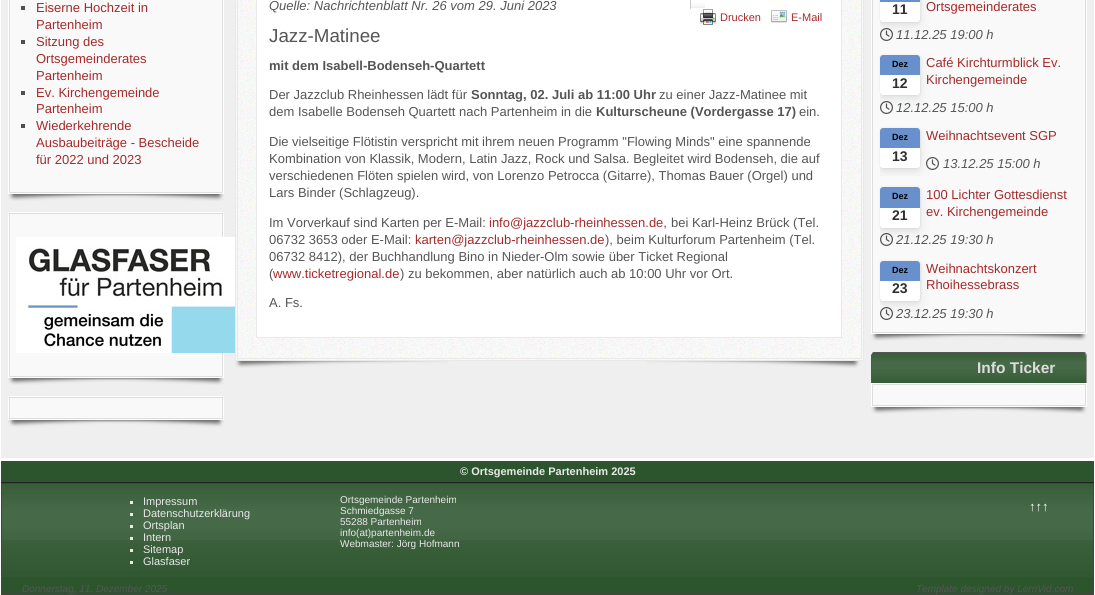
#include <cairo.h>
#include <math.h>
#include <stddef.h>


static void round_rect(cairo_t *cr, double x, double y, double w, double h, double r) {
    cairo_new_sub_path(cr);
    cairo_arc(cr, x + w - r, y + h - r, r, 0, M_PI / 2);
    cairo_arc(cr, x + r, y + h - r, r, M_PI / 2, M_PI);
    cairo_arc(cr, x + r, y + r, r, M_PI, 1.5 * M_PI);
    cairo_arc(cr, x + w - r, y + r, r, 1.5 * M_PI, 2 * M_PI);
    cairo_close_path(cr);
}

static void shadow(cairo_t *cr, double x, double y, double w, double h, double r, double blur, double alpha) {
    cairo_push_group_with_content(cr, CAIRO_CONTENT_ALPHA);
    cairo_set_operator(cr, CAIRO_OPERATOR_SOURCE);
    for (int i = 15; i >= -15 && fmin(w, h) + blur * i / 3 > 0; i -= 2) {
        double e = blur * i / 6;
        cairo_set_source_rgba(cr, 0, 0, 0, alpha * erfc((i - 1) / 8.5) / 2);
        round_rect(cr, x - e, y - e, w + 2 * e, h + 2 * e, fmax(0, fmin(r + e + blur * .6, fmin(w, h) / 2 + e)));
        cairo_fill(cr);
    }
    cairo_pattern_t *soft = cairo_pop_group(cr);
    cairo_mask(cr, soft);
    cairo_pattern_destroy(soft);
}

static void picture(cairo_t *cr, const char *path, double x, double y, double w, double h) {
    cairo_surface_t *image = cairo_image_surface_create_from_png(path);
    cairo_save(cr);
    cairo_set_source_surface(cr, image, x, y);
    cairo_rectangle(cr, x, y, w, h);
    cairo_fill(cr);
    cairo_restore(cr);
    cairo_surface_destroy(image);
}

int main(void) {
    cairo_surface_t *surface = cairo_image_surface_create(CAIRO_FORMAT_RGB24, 1095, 595);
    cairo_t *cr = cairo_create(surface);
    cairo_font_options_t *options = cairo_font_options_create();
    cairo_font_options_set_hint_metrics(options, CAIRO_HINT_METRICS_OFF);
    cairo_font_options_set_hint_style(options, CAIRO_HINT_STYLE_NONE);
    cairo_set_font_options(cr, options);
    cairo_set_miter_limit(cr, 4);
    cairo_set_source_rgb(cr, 0.937, 0.937, 0.937);
    cairo_paint(cr);
    cairo_rectangle(cr, 0.5, -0.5, 1094, 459);
    cairo_set_source_rgb(cr, 1, 1, 1);
    cairo_set_line_width(cr, 1);
    cairo_stroke(cr);
    cairo_rectangle(cr, 8.5, -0.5, 215, 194);
    cairo_stroke(cr);
    cairo_set_source_rgb(cr, 0.976, 0.976, 0.976);
    cairo_rectangle(cr, 9.5, -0.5, 213, 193);
    cairo_fill_preserve(cr);
    cairo_set_source_rgb(cr, 0.867, 0.867, 0.867);
    cairo_stroke(cr);
    cairo_set_source_rgb(cr, 0.314, 0.314, 0.314);
    cairo_rectangle(cr, 21, 6, 4, 4);
    cairo_fill(cr);
    cairo_select_font_face(cr, "Liberation Sans", CAIRO_FONT_SLANT_NORMAL, CAIRO_FONT_WEIGHT_NORMAL);
    cairo_set_font_size(cr, 13);
    cairo_set_source_rgb(cr, 0.647, 0.165, 0.165);
    cairo_move_to(cr, 36, 12);
    cairo_show_text(cr, "Eiserne Hochzeit in");
    cairo_move_to(cr, 36, 29);
    cairo_show_text(cr, "Partenheim");
    cairo_set_source_rgb(cr, 0.314, 0.314, 0.314);
    cairo_rectangle(cr, 21, 40, 4, 4);
    cairo_fill(cr);
    cairo_set_source_rgb(cr, 0.647, 0.165, 0.165);
    cairo_move_to(cr, 36, 46);
    cairo_show_text(cr, "Sitzung des");
    cairo_move_to(cr, 36, 63);
    cairo_show_text(cr, "Ortsgemeinderates");
    cairo_move_to(cr, 36, 80);
    cairo_show_text(cr, "Partenheim");
    cairo_set_source_rgb(cr, 0.314, 0.314, 0.314);
    cairo_rectangle(cr, 21, 91, 4, 4);
    cairo_fill(cr);
    cairo_set_source_rgb(cr, 0.647, 0.165, 0.165);
    cairo_move_to(cr, 36, 97);
    cairo_show_text(cr, "Ev. Kirchengemeinde");
    cairo_move_to(cr, 36, 113);
    cairo_show_text(cr, "Partenheim");
    cairo_set_source_rgb(cr, 0.314, 0.314, 0.314);
    cairo_rectangle(cr, 21, 124, 4, 4);
    cairo_fill(cr);
    cairo_set_source_rgb(cr, 0.647, 0.165, 0.165);
    cairo_move_to(cr, 36, 130);
    cairo_show_text(cr, "Wiederkehrende");
    cairo_move_to(cr, 36, 147);
    cairo_show_text(cr, "Ausbaubeiträge - Bescheide");
    cairo_move_to(cr, 36, 164);
    cairo_show_text(cr, "für 2022 und 2023");
    picture(cr, "img1.png", 8, 194, 214, 7);
    picture(cr, "img2.png", 10, 194, 214, 7);
    cairo_rectangle(cr, 8.5, 212.5, 215, 165);
    cairo_set_source_rgb(cr, 1, 1, 1);
    cairo_stroke(cr);
    cairo_set_source_rgb(cr, 0.976, 0.976, 0.976);
    cairo_rectangle(cr, 9.5, 213.5, 213, 163);
    cairo_fill_preserve(cr);
    cairo_set_source_rgb(cr, 0.867, 0.867, 0.867);
    cairo_stroke(cr);
    picture(cr, "img3.png", 16, 237, 219, 116);
    picture(cr, "img1.png", 8, 378, 214, 7);
    picture(cr, "img2.png", 10, 378, 214, 7);
    cairo_rectangle(cr, 8.5, 396.5, 215, 23);
    cairo_set_source_rgb(cr, 1, 1, 1);
    cairo_stroke(cr);
    cairo_set_source_rgb(cr, 0.976, 0.976, 0.976);
    cairo_rectangle(cr, 9.5, 397.5, 213, 21);
    cairo_fill_preserve(cr);
    cairo_set_source_rgb(cr, 0.867, 0.867, 0.867);
    cairo_stroke(cr);
    picture(cr, "img1.png", 8, 420, 214, 7);
    picture(cr, "img2.png", 10, 420, 214, 7);
    cairo_set_source_rgb(cr, 0.976, 0.976, 0.976);
    cairo_rectangle(cr, 236, 0, 627, 360);
    cairo_fill(cr);
    picture(cr, "img4.png", 236, 0, 627, 360);
    cairo_rectangle(cr, 235.5, -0.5, 628, 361);
    cairo_set_source_rgb(cr, 0.914, 0.914, 0.914);
    cairo_stroke(cr);
    cairo_rectangle(cr, 237.5, -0.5, 624, 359);
    cairo_stroke(cr);
    cairo_set_source_rgb(cr, 1, 1, 1);
    cairo_rectangle(cr, 256.5, -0.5, 585, 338);
    cairo_fill_preserve(cr);
    cairo_set_source_rgb(cr, 0.914, 0.914, 0.914);
    cairo_stroke(cr);
    cairo_select_font_face(cr, "Liberation Sans", CAIRO_FONT_SLANT_ITALIC, CAIRO_FONT_WEIGHT_NORMAL);
    cairo_set_source_rgb(cr, 0.333, 0.333, 0.333);
    cairo_move_to(cr, 269, 10);
    cairo_show_text(cr, "Quelle: Nachrichtenblatt Nr. 26 vom 29. Juni 2023");
    cairo_select_font_face(cr, "Liberation Sans", CAIRO_FONT_SLANT_NORMAL, CAIRO_FONT_WEIGHT_NORMAL);
    cairo_set_font_size(cr, 18.75);
    cairo_move_to(cr, 269, 42);
    cairo_show_text(cr, "Jazz-Matinee");
    cairo_select_font_face(cr, "Liberation Sans", CAIRO_FONT_SLANT_NORMAL, CAIRO_FONT_WEIGHT_BOLD);
    cairo_set_font_size(cr, 13);
    cairo_move_to(cr, 269, 70);
    cairo_show_text(cr, "mit dem Isabell-Bodenseh-Quartett");
    cairo_select_font_face(cr, "Liberation Sans", CAIRO_FONT_SLANT_NORMAL, CAIRO_FONT_WEIGHT_NORMAL);
    cairo_move_to(cr, 269, 99);
    cairo_show_text(cr, "Der Jazzclub Rheinhessen lädt für");
    cairo_select_font_face(cr, "Liberation Sans", CAIRO_FONT_SLANT_NORMAL, CAIRO_FONT_WEIGHT_BOLD);
    cairo_move_to(cr, 471, 99);
    cairo_show_text(cr, "Sonntag, 02. Juli ab 11:00 Uhr");
    cairo_select_font_face(cr, "Liberation Sans", CAIRO_FONT_SLANT_NORMAL, CAIRO_FONT_WEIGHT_NORMAL);
    cairo_move_to(cr, 659, 99);
    cairo_show_text(cr, "zu einer Jazz-Matinee mit");
    cairo_move_to(cr, 269, 116);
    cairo_show_text(cr, "dem Isabelle Bodenseh Quartett nach Partenheim in die");
    cairo_select_font_face(cr, "Liberation Sans", CAIRO_FONT_SLANT_NORMAL, CAIRO_FONT_WEIGHT_BOLD);
    cairo_move_to(cr, 596, 116);
    cairo_show_text(cr, "Kulturscheune (Vordergasse 17)");
    cairo_select_font_face(cr, "Liberation Sans", CAIRO_FONT_SLANT_NORMAL, CAIRO_FONT_WEIGHT_NORMAL);
    cairo_move_to(cr, 799, 116);
    cairo_show_text(cr, "ein.");
    cairo_move_to(cr, 269, 146);
    cairo_show_text(cr, "Die vielseitige Flötistin verspricht mit ihrem neuen Programm \"Flowing Minds\" eine spannende");
    cairo_move_to(cr, 269, 163);
    cairo_show_text(cr, "Kombination von Klassik, Modern, Latin Jazz, Rock und Salsa. Begleitet wird Bodenseh, die auf");
    cairo_move_to(cr, 269, 180);
    cairo_show_text(cr, "verschiedenen Flöten spielen wird, von Lorenzo Petrocca (Gitarre), Thomas Bauer (Orgel) und");
    cairo_move_to(cr, 269, 197);
    cairo_show_text(cr, "Lars Binder (Schlagzeug).");
    cairo_move_to(cr, 269, 227);
    cairo_show_text(cr, "Im Vorverkauf sind Karten per E-Mail:");
    cairo_set_source_rgb(cr, 0.647, 0.165, 0.165);
    cairo_move_to(cr, 489, 227);
    cairo_show_text(cr, "info@jazzclub-rheinhessen.de,");
    cairo_set_source_rgb(cr, 0.333, 0.333, 0.333);
    cairo_move_to(cr, 671, 227);
    cairo_show_text(cr, "bei Karl-Heinz Brück (Tel.");
    cairo_move_to(cr, 269, 244);
    cairo_show_text(cr, "06732 3653 oder E-Mail:");
    cairo_set_source_rgb(cr, 0.647, 0.165, 0.165);
    cairo_move_to(cr, 415, 244);
    cairo_show_text(cr, "karten@jazzclub-rheinhessen.de");
    cairo_set_source_rgb(cr, 0.333, 0.333, 0.333);
    cairo_move_to(cr, 605, 244);
    cairo_show_text(cr, "), beim Kulturforum Partenheim (Tel.");
    cairo_move_to(cr, 269, 261);
    cairo_show_text(cr, "06732 8412), der Buchhandlung Bino in Nieder-Olm sowie über Ticket Regional");
    cairo_move_to(cr, 269, 278);
    cairo_show_text(cr, "(");
    cairo_set_source_rgb(cr, 0.647, 0.165, 0.165);
    cairo_move_to(cr, 273, 278);
    cairo_show_text(cr, "www.ticketregional.de");
    cairo_set_source_rgb(cr, 0.333, 0.333, 0.333);
    cairo_move_to(cr, 400, 278);
    cairo_show_text(cr, ") zu bekommen, aber natürlich auch ab 10:00 Uhr vor Ort.");
    cairo_move_to(cr, 269, 307);
    cairo_show_text(cr, "A. Fs.");
    cairo_set_source_rgb(cr, 0.937, 0.937, 0.937);
    cairo_rectangle(cr, 691, 7, 14, 1);
    cairo_fill(cr);
    picture(cr, "img5.png", 691, 0, 14, 7);
    cairo_set_source_rgb(cr, 0.8, 0.8, 0.8);
    cairo_rectangle(cr, 690, 0, 1, 9);
    cairo_fill(cr);
    picture(cr, "img6.png", 700, 9, 16, 16);
    cairo_set_font_size(cr, 11);
    cairo_set_source_rgb(cr, 0.647, 0.165, 0.165);
    cairo_move_to(cr, 720, 21);
    cairo_show_text(cr, "Drucken");
    picture(cr, "img7.png", 771, 10, 16, 13);
    cairo_move_to(cr, 791, 21);
    cairo_show_text(cr, "E-Mail");
    picture(cr, "img8.png", 235, 361, 214, 7);
    picture(cr, "img9.png", 646, 361, 214, 7);
    cairo_rectangle(cr, 871.5, -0.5, 215, 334);
    cairo_set_source_rgb(cr, 1, 1, 1);
    cairo_stroke(cr);
    cairo_set_source_rgb(cr, 0.976, 0.976, 0.976);
    cairo_rectangle(cr, 872.5, -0.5, 213, 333);
    cairo_fill_preserve(cr);
    cairo_set_source_rgb(cr, 0.867, 0.867, 0.867);
    cairo_stroke(cr);
    cairo_set_font_size(cr, 13);
    cairo_set_source_rgb(cr, 0.647, 0.165, 0.165);
    cairo_move_to(cr, 926, 11);
    cairo_show_text(cr, "Ortsgemeinderates");
    picture(cr, "img10.png", 880, 28, 13, 13);
    cairo_select_font_face(cr, "Liberation Sans", CAIRO_FONT_SLANT_ITALIC, CAIRO_FONT_WEIGHT_NORMAL);
    cairo_set_source_rgb(cr, 0.333, 0.333, 0.333);
    cairo_move_to(cr, 896, 39);
    cairo_show_text(cr, "11.12.25 19:00 h");
    cairo_save(cr);
    cairo_rectangle(cr, 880, 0, 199, 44);
    cairo_clip(cr);
    cairo_set_source_rgb(cr, 0.204, 0.227, 0.263);
    shadow(cr, 880, -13, 40, 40, 3, 7.5, 0.08);
    shadow(cr, 880, -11, 40, 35, 3, 2.5, 0.08);
    cairo_restore(cr);
    cairo_set_source_rgb(cr, 0.204, 0.227, 0.263);
    shadow(cr, 880, -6, 40, 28, 3, 1, 0.1);
    cairo_set_source_rgb(cr, 1, 1, 1);
    round_rect(cr, 880, -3, 40, 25, 3);
    cairo_fill(cr);
    cairo_set_source_rgb(cr, 0.408, 0.565, 0.8);
    cairo_rectangle(cr, 880, 0, 40, 2);
    cairo_fill(cr);
    cairo_select_font_face(cr, "Liberation Sans", CAIRO_FONT_SLANT_NORMAL, CAIRO_FONT_WEIGHT_BOLD);
    cairo_set_font_size(cr, 14);
    cairo_set_source_rgb(cr, 0.184, 0.184, 0.184);
    cairo_move_to(cr, 892, 14);
    cairo_show_text(cr, "11");
    cairo_select_font_face(cr, "Liberation Sans", CAIRO_FONT_SLANT_NORMAL, CAIRO_FONT_WEIGHT_NORMAL);
    cairo_set_font_size(cr, 13);
    cairo_set_source_rgb(cr, 0.647, 0.165, 0.165);
    cairo_move_to(cr, 926, 67);
    cairo_show_text(cr, "Café Kirchturmblick Ev.");
    cairo_move_to(cr, 926, 84);
    cairo_show_text(cr, "Kirchengemeinde");
    picture(cr, "img10.png", 880, 101, 13, 13);
    cairo_select_font_face(cr, "Liberation Sans", CAIRO_FONT_SLANT_ITALIC, CAIRO_FONT_WEIGHT_NORMAL);
    cairo_set_source_rgb(cr, 0.333, 0.333, 0.333);
    cairo_move_to(cr, 896, 112);
    cairo_show_text(cr, "12.12.25 15:00 h");
    cairo_save(cr);
    cairo_rectangle(cr, 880, 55, 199, 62);
    cairo_clip(cr);
    cairo_set_source_rgb(cr, 0.204, 0.227, 0.263);
    shadow(cr, 880, 60, 40, 40, 3, 7.5, 0.08);
    shadow(cr, 880, 57, 40, 40, 3, 2.5, 0.08);
    cairo_restore(cr);
    cairo_set_source_rgb(cr, 0.204, 0.227, 0.263);
    shadow(cr, 880, 55, 40, 40, 3, 1, 0.1);
    cairo_set_source_rgb(cr, 1, 1, 1);
    round_rect(cr, 880, 55, 40, 40, 3);
    cairo_fill(cr);
    cairo_set_source_rgb(cr, 0.408, 0.565, 0.8);
    cairo_rectangle(cr, 880, 73, 40, 2);
    cairo_fill(cr);
    cairo_new_path(cr);
    cairo_move_to(cr, 883, 55);
    cairo_line_to(cr, 917, 55);
    cairo_curve_to(cr, 918.5, 55, 920, 56.5, 920, 58);
    cairo_line_to(cr, 920, 73);
    cairo_line_to(cr, 880, 73);
    cairo_line_to(cr, 880, 58);
    cairo_curve_to(cr, 880, 56.5, 881.5, 55, 883, 55);
    cairo_close_path(cr);
    cairo_fill(cr);
    cairo_select_font_face(cr, "Liberation Sans", CAIRO_FONT_SLANT_NORMAL, CAIRO_FONT_WEIGHT_BOLD);
    cairo_set_font_size(cr, 9);
    cairo_set_source_rgb(cr, 0, 0, 0);
    cairo_move_to(cr, 892, 67);
    cairo_show_text(cr, "Dez");
    cairo_set_font_size(cr, 14);
    cairo_set_source_rgb(cr, 0.184, 0.184, 0.184);
    cairo_move_to(cr, 892, 88);
    cairo_show_text(cr, "12");
    picture(cr, "img10.png", 926, 157, 13, 13);
    cairo_save(cr);
    cairo_rectangle(cr, 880, 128, 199, 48);
    cairo_clip(cr);
    cairo_set_source_rgb(cr, 0.204, 0.227, 0.263);
    shadow(cr, 880, 133, 40, 40, 3, 7.5, 0.08);
    shadow(cr, 880, 130, 40, 40, 3, 2.5, 0.08);
    cairo_restore(cr);
    cairo_set_source_rgb(cr, 0.204, 0.227, 0.263);
    shadow(cr, 880, 128, 40, 40, 3, 1, 0.1);
    cairo_set_source_rgb(cr, 1, 1, 1);
    round_rect(cr, 880, 128, 40, 40, 3);
    cairo_fill(cr);
    cairo_set_source_rgb(cr, 0.408, 0.565, 0.8);
    cairo_rectangle(cr, 880, 146, 40, 2);
    cairo_fill(cr);
    cairo_new_path(cr);
    cairo_move_to(cr, 883, 128);
    cairo_line_to(cr, 917, 128);
    cairo_curve_to(cr, 918.5, 128, 920, 129.5, 920, 131);
    cairo_line_to(cr, 920, 146);
    cairo_line_to(cr, 880, 146);
    cairo_line_to(cr, 880, 131);
    cairo_curve_to(cr, 880, 129.5, 881.5, 128, 883, 128);
    cairo_close_path(cr);
    cairo_fill(cr);
    cairo_set_font_size(cr, 9);
    cairo_set_source_rgb(cr, 0, 0, 0);
    cairo_move_to(cr, 892, 140);
    cairo_show_text(cr, "Dez");
    cairo_set_font_size(cr, 14);
    cairo_set_source_rgb(cr, 0.184, 0.184, 0.184);
    cairo_move_to(cr, 892, 161);
    cairo_show_text(cr, "13");
    cairo_select_font_face(cr, "Liberation Sans", CAIRO_FONT_SLANT_NORMAL, CAIRO_FONT_WEIGHT_NORMAL);
    cairo_set_font_size(cr, 13);
    cairo_set_source_rgb(cr, 0.647, 0.165, 0.165);
    cairo_move_to(cr, 926, 140);
    cairo_show_text(cr, "Weihnachtsevent SGP");
    cairo_select_font_face(cr, "Liberation Sans", CAIRO_FONT_SLANT_ITALIC, CAIRO_FONT_WEIGHT_NORMAL);
    cairo_set_source_rgb(cr, 0.333, 0.333, 0.333);
    cairo_move_to(cr, 943, 168);
    cairo_show_text(cr, "13.12.25 15:00 h");
    cairo_select_font_face(cr, "Liberation Sans", CAIRO_FONT_SLANT_NORMAL, CAIRO_FONT_WEIGHT_NORMAL);
    cairo_set_source_rgb(cr, 0.647, 0.165, 0.165);
    cairo_move_to(cr, 926, 199);
    cairo_show_text(cr, "100 Lichter Gottesdienst");
    cairo_move_to(cr, 926, 216);
    cairo_show_text(cr, "ev. Kirchengemeinde");
    picture(cr, "img10.png", 880, 233, 13, 13);
    cairo_select_font_face(cr, "Liberation Sans", CAIRO_FONT_SLANT_ITALIC, CAIRO_FONT_WEIGHT_NORMAL);
    cairo_set_source_rgb(cr, 0.333, 0.333, 0.333);
    cairo_move_to(cr, 896, 244);
    cairo_show_text(cr, "21.12.25 19:30 h");
    cairo_save(cr);
    cairo_rectangle(cr, 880, 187, 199, 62);
    cairo_clip(cr);
    cairo_set_source_rgb(cr, 0.204, 0.227, 0.263);
    shadow(cr, 880, 192, 40, 41, 3, 7.5, 0.08);
    shadow(cr, 880, 189, 40, 41, 3, 2.5, 0.08);
    cairo_restore(cr);
    cairo_set_source_rgb(cr, 0.204, 0.227, 0.263);
    shadow(cr, 880, 187, 40, 41, 3, 1, 0.1);
    cairo_set_source_rgb(cr, 1, 1, 1);
    round_rect(cr, 880, 187, 40, 41, 3);
    cairo_fill(cr);
    cairo_set_source_rgb(cr, 0.408, 0.565, 0.8);
    cairo_rectangle(cr, 880, 206, 40, 2);
    cairo_fill(cr);
    cairo_new_path(cr);
    cairo_move_to(cr, 883, 187);
    cairo_line_to(cr, 917, 187);
    cairo_curve_to(cr, 918.5, 187, 920, 188.5, 920, 190);
    cairo_line_to(cr, 920, 206);
    cairo_line_to(cr, 880, 206);
    cairo_line_to(cr, 880, 190);
    cairo_curve_to(cr, 880, 188.5, 881.5, 187, 883, 187);
    cairo_close_path(cr);
    cairo_fill(cr);
    cairo_select_font_face(cr, "Liberation Sans", CAIRO_FONT_SLANT_NORMAL, CAIRO_FONT_WEIGHT_BOLD);
    cairo_set_font_size(cr, 9);
    cairo_set_source_rgb(cr, 0, 0, 0);
    cairo_move_to(cr, 892, 199);
    cairo_show_text(cr, "Dez");
    cairo_set_font_size(cr, 14);
    cairo_set_source_rgb(cr, 0.184, 0.184, 0.184);
    cairo_move_to(cr, 892, 220);
    cairo_show_text(cr, "21");
    cairo_select_font_face(cr, "Liberation Sans", CAIRO_FONT_SLANT_NORMAL, CAIRO_FONT_WEIGHT_NORMAL);
    cairo_set_font_size(cr, 13);
    cairo_set_source_rgb(cr, 0.647, 0.165, 0.165);
    cairo_move_to(cr, 926, 273);
    cairo_show_text(cr, "Weihnachtskonzert");
    cairo_move_to(cr, 926, 289);
    cairo_show_text(cr, "Rhoihessebrass");
    picture(cr, "img10.png", 880, 307, 13, 13);
    cairo_select_font_face(cr, "Liberation Sans", CAIRO_FONT_SLANT_ITALIC, CAIRO_FONT_WEIGHT_NORMAL);
    cairo_set_source_rgb(cr, 0.333, 0.333, 0.333);
    cairo_move_to(cr, 896, 318);
    cairo_show_text(cr, "23.12.25 19:30 h");
    cairo_save(cr);
    cairo_rectangle(cr, 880, 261, 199, 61);
    cairo_clip(cr);
    cairo_set_source_rgb(cr, 0.204, 0.227, 0.263);
    shadow(cr, 880, 266, 40, 40, 3, 7.5, 0.08);
    shadow(cr, 880, 263, 40, 40, 3, 2.5, 0.08);
    cairo_restore(cr);
    cairo_set_source_rgb(cr, 0.204, 0.227, 0.263);
    shadow(cr, 880, 261, 40, 40, 3, 1, 0.1);
    cairo_set_source_rgb(cr, 1, 1, 1);
    round_rect(cr, 880, 261, 40, 40, 3);
    cairo_fill(cr);
    cairo_set_source_rgb(cr, 0.408, 0.565, 0.8);
    cairo_rectangle(cr, 880, 279, 40, 2);
    cairo_fill(cr);
    cairo_new_path(cr);
    cairo_move_to(cr, 883, 261);
    cairo_line_to(cr, 917, 261);
    cairo_curve_to(cr, 918.5, 261, 920, 262.5, 920, 264);
    cairo_line_to(cr, 920, 279);
    cairo_line_to(cr, 880, 279);
    cairo_line_to(cr, 880, 264);
    cairo_curve_to(cr, 880, 262.5, 881.5, 261, 883, 261);
    cairo_close_path(cr);
    cairo_fill(cr);
    cairo_select_font_face(cr, "Liberation Sans", CAIRO_FONT_SLANT_NORMAL, CAIRO_FONT_WEIGHT_BOLD);
    cairo_set_font_size(cr, 9);
    cairo_set_source_rgb(cr, 0, 0, 0);
    cairo_move_to(cr, 892, 273);
    cairo_show_text(cr, "Dez");
    cairo_set_font_size(cr, 14);
    cairo_set_source_rgb(cr, 0.184, 0.184, 0.184);
    cairo_move_to(cr, 892, 293);
    cairo_show_text(cr, "23");
    picture(cr, "img1.png", 871, 334, 214, 7);
    picture(cr, "img2.png", 873, 334, 214, 7);
    cairo_set_source_rgb(cr, 0.173, 0.329, 0.176);
    cairo_new_path(cr);
    cairo_move_to(cr, 876, 352);
    cairo_line_to(cr, 1082, 352);
    cairo_curve_to(cr, 1085, 352, 1087, 354, 1087, 357);
    cairo_line_to(cr, 1087, 383);
    cairo_line_to(cr, 871, 383);
    cairo_line_to(cr, 871, 357);
    cairo_curve_to(cr, 871, 354, 873, 352, 876, 352);
    cairo_close_path(cr);
    cairo_fill(cr);
    picture(cr, "img11.png", 871, 353, 216, 30);
    cairo_set_source_rgb(cr, 0.333, 0.333, 0.333);
    cairo_new_path(cr);
    cairo_move_to(cr, 876, 352);
    cairo_curve_to(cr, 874, 352, 873, 352, 872, 353);
    cairo_line_to(cr, 873, 354);
    cairo_line_to(cr, 876, 353);
    cairo_line_to(cr, 1082, 353);
    cairo_line_to(cr, 1085, 354);
    cairo_line_to(cr, 1086, 353);
    cairo_curve_to(cr, 1085, 352, 1084, 352, 1082, 352);
    cairo_close_path(cr);
    cairo_fill(cr);
    cairo_set_source_rgb(cr, 0.6, 0.6, 0.6);
    cairo_new_path(cr);
    cairo_move_to(cr, 1086, 383);
    cairo_line_to(cr, 1087, 383);
    cairo_line_to(cr, 1087, 357);
    cairo_curve_to(cr, 1087, 355.5, 1086.5, 354, 1085.5, 353.5);
    cairo_line_to(cr, 1085, 354);
    cairo_curve_to(cr, 1085.5, 355, 1086, 356, 1086, 357);
    cairo_close_path(cr);
    cairo_fill(cr);
    cairo_set_source_rgb(cr, 0.333, 0.333, 0.333);
    cairo_new_path(cr);
    cairo_move_to(cr, 871, 383);
    cairo_line_to(cr, 872, 383);
    cairo_line_to(cr, 872, 357);
    cairo_curve_to(cr, 872, 356, 872.5, 355, 873, 354);
    cairo_line_to(cr, 872.5, 353.5);
    cairo_curve_to(cr, 871.5, 354, 871, 355.5, 871, 357);
    cairo_close_path(cr);
    cairo_fill(cr);
    cairo_set_font_size(cr, 15.5);
    cairo_set_source_rgb(cr, 0.867, 0.867, 0.867);
    cairo_move_to(cr, 977, 373);
    cairo_show_text(cr, "Info Ticker");
    cairo_rectangle(cr, 871.5, 383.5, 215, 23);
    cairo_set_source_rgb(cr, 1, 1, 1);
    cairo_stroke(cr);
    cairo_set_source_rgb(cr, 0.976, 0.976, 0.976);
    cairo_rectangle(cr, 872.5, 384.5, 213, 21);
    cairo_fill_preserve(cr);
    cairo_set_source_rgb(cr, 0.867, 0.867, 0.867);
    cairo_stroke(cr);
    picture(cr, "img1.png", 871, 407, 214, 7);
    picture(cr, "img2.png", 873, 407, 214, 7);
    cairo_rectangle(cr, 0.5, 459.5, 1094, 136);
    cairo_set_source_rgb(cr, 1, 1, 1);
    cairo_stroke(cr);
    cairo_set_source_rgb(cr, 0.173, 0.329, 0.176);
    cairo_rectangle(cr, 1, 461, 1093, 21);
    cairo_fill(cr);
    cairo_set_source_rgb(cr, 1, 1, 1);
    cairo_rectangle(cr, 1, 460, 1093, 1);
    cairo_fill(cr);
    cairo_set_source_rgb(cr, 0.133, 0.133, 0.133);
    cairo_rectangle(cr, 1, 482, 1093, 1);
    cairo_fill(cr);
    cairo_set_font_size(cr, 11);
    cairo_set_source_rgb(cr, 0.91, 0.91, 0.91);
    cairo_move_to(cr, 460, 475);
    cairo_show_text(cr, "© Ortsgemeinde Partenheim 2025");
    cairo_set_source_rgb(cr, 0.173, 0.329, 0.176);
    cairo_rectangle(cr, 2, 484, 1091, 110);
    cairo_fill(cr);
    picture(cr, "img12.png", 2, 484, 1091, 93);
    cairo_set_source_rgb(cr, 0.267, 0.267, 0.267);
    cairo_rectangle(cr, 1, 483, 1093, 1);
    cairo_fill(cr);
    cairo_rectangle(cr, 1093, 483, 1, 112);
    cairo_fill(cr);
    cairo_rectangle(cr, 1, 594, 1093, 1);
    cairo_fill(cr);
    cairo_rectangle(cr, 1, 483, 1, 112);
    cairo_fill(cr);
    cairo_set_source_rgb(cr, 0.922, 0.918, 0.894);
    cairo_rectangle(cr, 130, 501, 3, 3);
    cairo_fill(cr);
    cairo_select_font_face(cr, "Liberation Sans", CAIRO_FONT_SLANT_NORMAL, CAIRO_FONT_WEIGHT_NORMAL);
    cairo_set_source_rgb(cr, 0.91, 0.91, 0.91);
    cairo_move_to(cr, 143, 505);
    cairo_show_text(cr, "Impressum");
    cairo_set_source_rgb(cr, 0.922, 0.918, 0.894);
    cairo_rectangle(cr, 130, 513, 3, 3);
    cairo_fill(cr);
    cairo_set_source_rgb(cr, 0.91, 0.91, 0.91);
    cairo_move_to(cr, 143, 517);
    cairo_show_text(cr, "Datenschutzerklärung");
    cairo_set_source_rgb(cr, 0.922, 0.918, 0.894);
    cairo_rectangle(cr, 130, 525, 3, 3);
    cairo_fill(cr);
    cairo_set_source_rgb(cr, 0.91, 0.91, 0.91);
    cairo_move_to(cr, 143, 529);
    cairo_show_text(cr, "Ortsplan");
    cairo_set_source_rgb(cr, 0.922, 0.918, 0.894);
    cairo_rectangle(cr, 130, 537, 3, 3);
    cairo_fill(cr);
    cairo_set_source_rgb(cr, 0.91, 0.91, 0.91);
    cairo_move_to(cr, 143, 541);
    cairo_show_text(cr, "Intern");
    cairo_set_source_rgb(cr, 0.922, 0.918, 0.894);
    cairo_rectangle(cr, 130, 549, 3, 3);
    cairo_fill(cr);
    cairo_set_source_rgb(cr, 0.91, 0.91, 0.91);
    cairo_move_to(cr, 143, 553);
    cairo_show_text(cr, "Sitemap");
    cairo_set_source_rgb(cr, 0.922, 0.918, 0.894);
    cairo_rectangle(cr, 130, 561, 3, 3);
    cairo_fill(cr);
    cairo_set_source_rgb(cr, 0.91, 0.91, 0.91);
    cairo_move_to(cr, 143, 565);
    cairo_show_text(cr, "Glasfaser");
    cairo_set_font_size(cr, 10);
    cairo_move_to(cr, 340, 503);
    cairo_show_text(cr, "Ortsgemeinde Partenheim");
    cairo_move_to(cr, 340, 514);
    cairo_show_text(cr, "Schmiedgasse 7");
    cairo_move_to(cr, 340, 525);
    cairo_show_text(cr, "55288 Partenheim");
    cairo_move_to(cr, 340, 536);
    cairo_show_text(cr, "info(at)partenheim.de");
    cairo_move_to(cr, 340, 547);
    cairo_show_text(cr, "Webmaster: Jörg Hofmann");
    cairo_set_font_size(cr, 13);
    cairo_set_source_rgb(cr, 1, 1, 1);
    cairo_move_to(cr, 1029, 511);
    cairo_show_text(cr, "↑↑↑");
    cairo_select_font_face(cr, "Liberation Sans", CAIRO_FONT_SLANT_ITALIC, CAIRO_FONT_WEIGHT_NORMAL);
    cairo_set_font_size(cr, 10);
    cairo_set_source_rgb(cr, 0.333, 0.333, 0.333);
    cairo_move_to(cr, 22, 592);
    cairo_show_text(cr, "Donnerstag, 11. Dezember 2025");
    cairo_move_to(cr, 916, 592);
    cairo_show_text(cr, "Template designed by LernVid.com");
    cairo_surface_write_to_png(surface, "page.png");
    cairo_font_options_destroy(options);
    cairo_destroy(cr);
    cairo_surface_destroy(surface);
    return 0;
}
